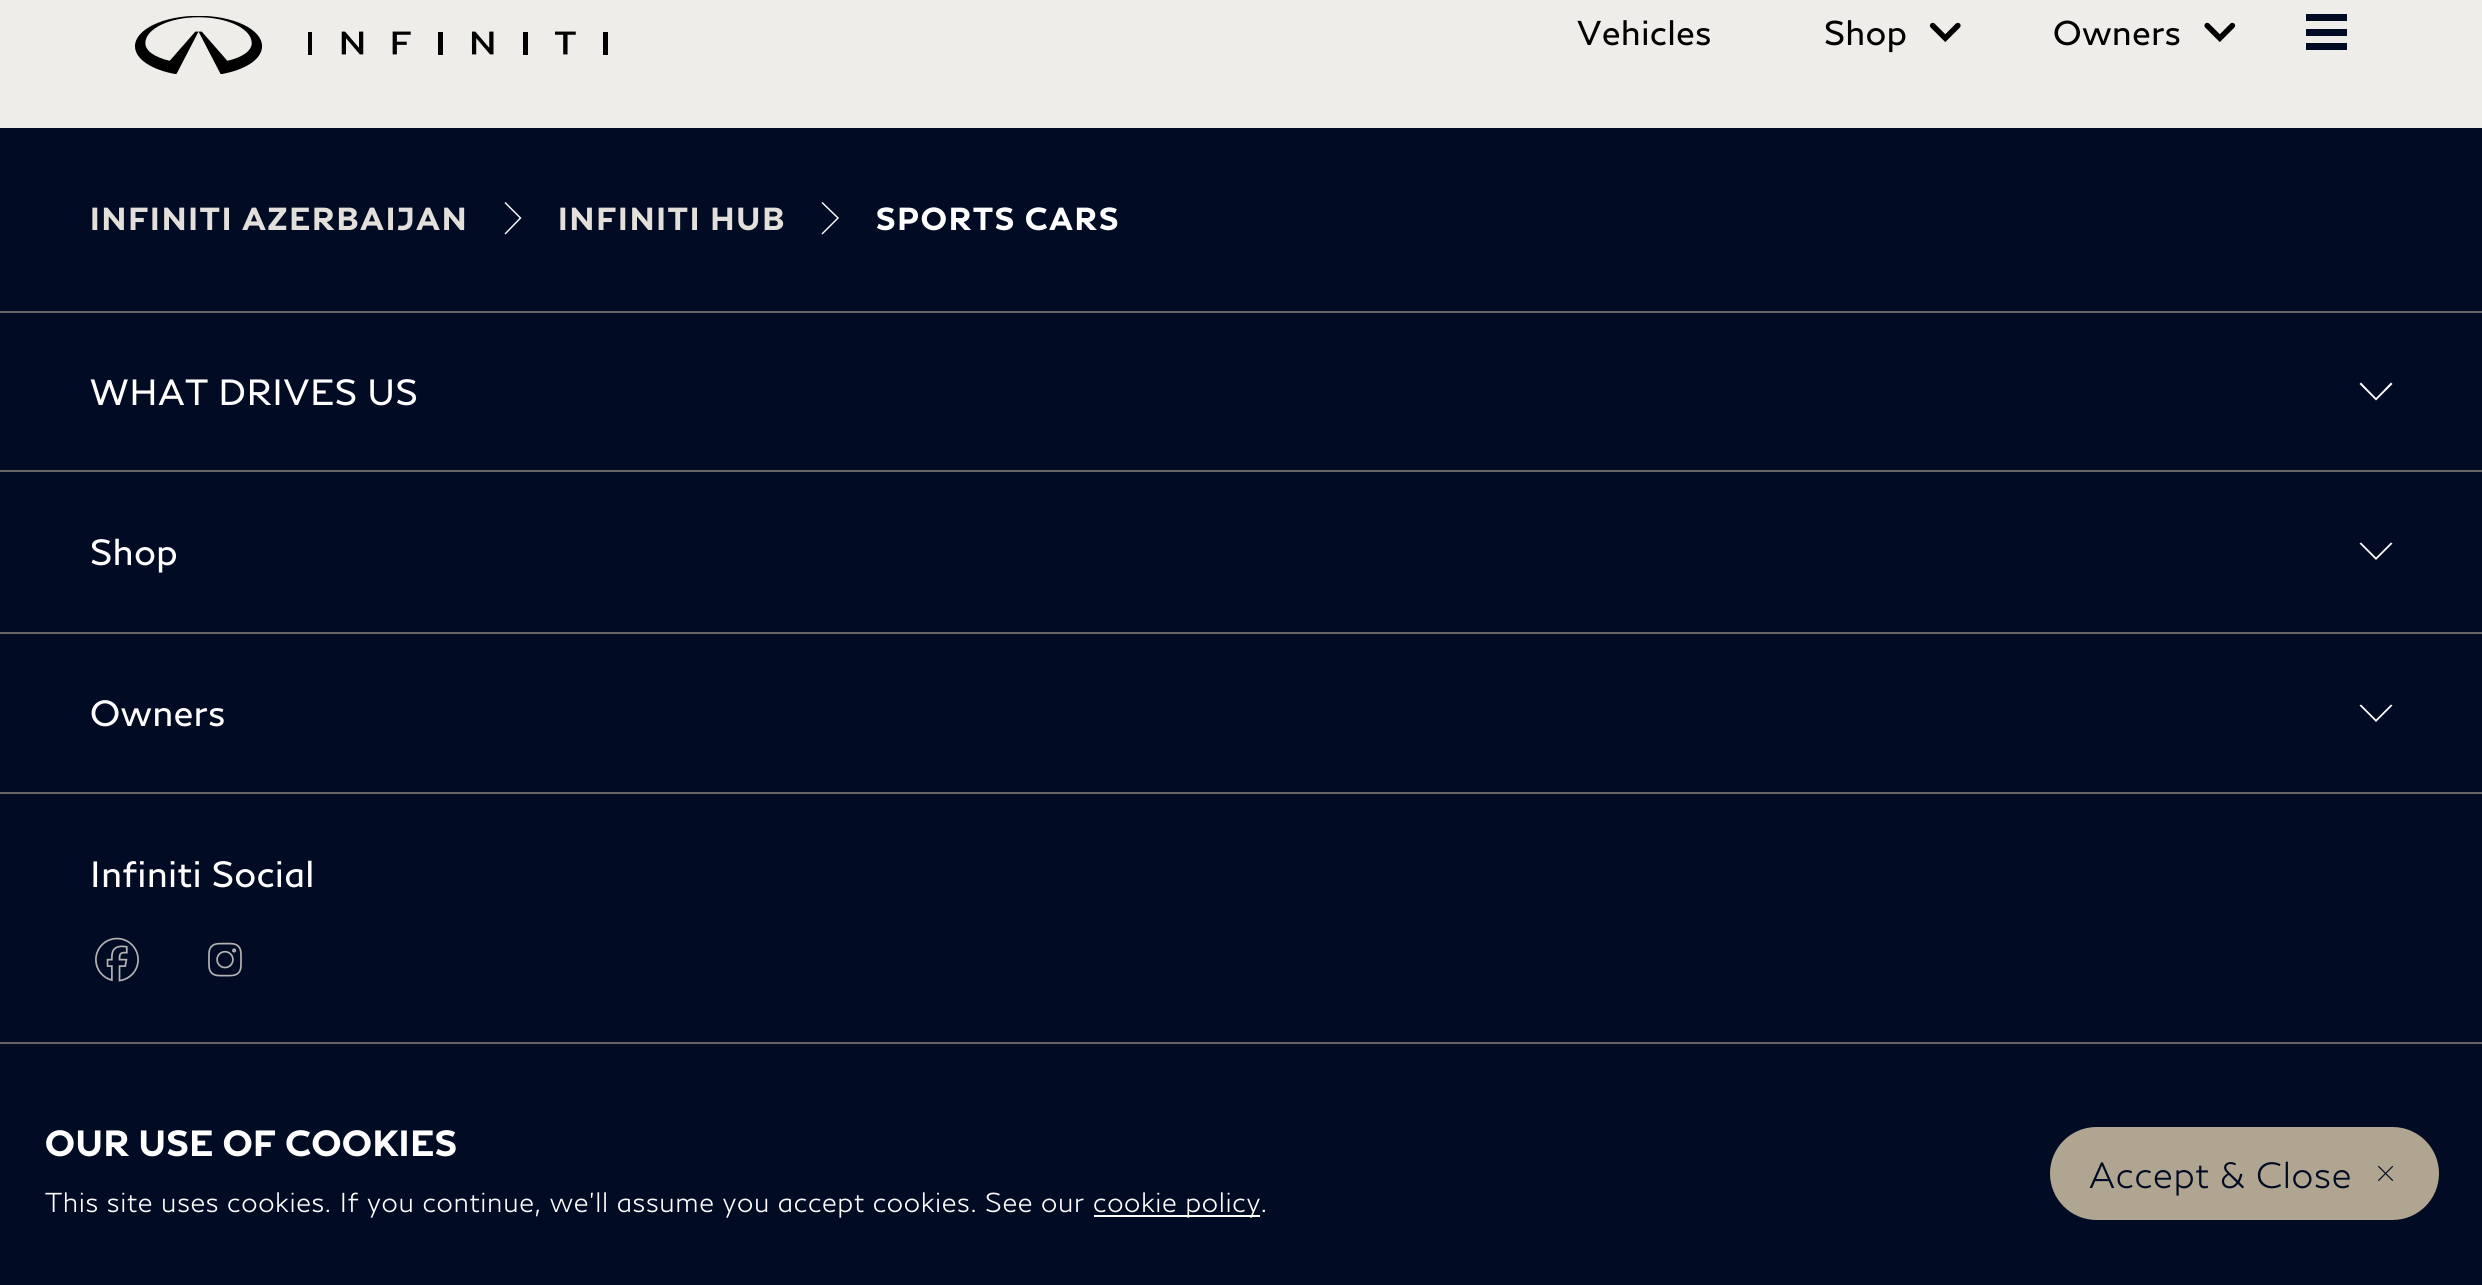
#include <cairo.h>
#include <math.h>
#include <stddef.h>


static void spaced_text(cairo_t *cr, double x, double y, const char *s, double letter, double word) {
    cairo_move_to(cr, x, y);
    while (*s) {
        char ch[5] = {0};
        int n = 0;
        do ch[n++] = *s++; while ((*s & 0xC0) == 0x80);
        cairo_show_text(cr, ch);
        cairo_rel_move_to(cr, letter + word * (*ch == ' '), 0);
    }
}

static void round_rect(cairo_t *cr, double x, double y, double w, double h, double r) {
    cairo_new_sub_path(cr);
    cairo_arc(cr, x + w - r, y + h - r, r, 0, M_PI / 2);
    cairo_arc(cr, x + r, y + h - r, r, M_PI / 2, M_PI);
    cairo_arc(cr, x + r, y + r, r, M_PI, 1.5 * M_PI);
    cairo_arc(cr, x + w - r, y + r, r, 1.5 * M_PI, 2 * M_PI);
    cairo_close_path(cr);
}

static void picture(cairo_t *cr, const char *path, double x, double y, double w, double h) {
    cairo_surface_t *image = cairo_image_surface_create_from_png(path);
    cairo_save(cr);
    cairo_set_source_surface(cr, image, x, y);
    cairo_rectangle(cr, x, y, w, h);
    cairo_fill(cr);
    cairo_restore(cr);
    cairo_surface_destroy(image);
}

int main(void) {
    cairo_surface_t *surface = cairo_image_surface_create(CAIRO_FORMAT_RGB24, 2482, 1285);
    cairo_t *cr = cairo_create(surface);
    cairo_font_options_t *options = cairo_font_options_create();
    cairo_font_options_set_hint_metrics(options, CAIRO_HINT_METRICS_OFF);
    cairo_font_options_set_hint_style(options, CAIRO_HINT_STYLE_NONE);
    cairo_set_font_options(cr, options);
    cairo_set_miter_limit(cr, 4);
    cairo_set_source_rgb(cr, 0.008, 0.043, 0.141);
    cairo_paint(cr);
    cairo_set_source_rgb(cr, 0.937, 0.929, 0.914);
    cairo_rectangle(cr, 0, 0, 2482, 128);
    cairo_fill(cr);
    picture(cr, "img1.png", 135, 16, 473, 58);
    cairo_select_font_face(cr, "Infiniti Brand", CAIRO_FONT_SLANT_NORMAL, CAIRO_FONT_WEIGHT_NORMAL);
    cairo_set_font_size(cr, 34);
    cairo_set_source_rgb(cr, 0, 0, 0);
    spaced_text(cr, 1577, 45, "Vehicles", 0.67, 0);
    spaced_text(cr, 1824, 45, "Shop", 0.67, 0);
    picture(cr, "img2.png", 1929, 22, 32, 20);
    spaced_text(cr, 2053, 45, "Owners", 0.67, 0);
    picture(cr, "img3.png", 2204, 22, 32, 20);
    cairo_set_source_rgb(cr, 0.008, 0.043, 0.141);
    cairo_rectangle(cr, 2306, 14, 41, 7);
    cairo_fill(cr);
    cairo_rectangle(cr, 2306, 29, 41, 7);
    cairo_fill(cr);
    cairo_rectangle(cr, 2306, 43, 41, 7);
    cairo_fill(cr);
    cairo_set_source_rgb(cr, 0.392, 0.392, 0.392);
    cairo_rectangle(cr, 0, 311, 2482, 2);
    cairo_fill(cr);
    cairo_select_font_face(cr, "Infiniti Brand", CAIRO_FONT_SLANT_NORMAL, CAIRO_FONT_WEIGHT_BOLD);
    cairo_set_font_size(cr, 31.5);
    cairo_set_source_rgb(cr, 0.89, 0.875, 0.855);
    spaced_text(cr, 90, 230, "INFINITI AZERBAIJAN", 1.9, 0);
    cairo_set_source_rgb(cr, 1, 1, 1);
    cairo_new_path(cr);
    cairo_move_to(cr, 520.5, 217);
    cairo_line_to(cr, 505.5, 202);
    cairo_line_to(cr, 504.5, 203);
    cairo_line_to(cr, 519.5, 218);
    cairo_line_to(cr, 504.5, 233.5);
    cairo_line_to(cr, 505.5, 234.5);
    cairo_line_to(cr, 521.5, 218);
    cairo_close_path(cr);
    cairo_fill(cr);
    cairo_set_source_rgb(cr, 0.89, 0.875, 0.855);
    spaced_text(cr, 558, 230, "INFINITI HUB", 1.9, 0);
    cairo_set_source_rgb(cr, 1, 1, 1);
    cairo_new_path(cr);
    cairo_move_to(cr, 838, 217);
    cairo_line_to(cr, 822.5, 202);
    cairo_line_to(cr, 821.5, 203);
    cairo_line_to(cr, 837, 218);
    cairo_line_to(cr, 821.5, 233.5);
    cairo_line_to(cr, 822.5, 234.5);
    cairo_line_to(cr, 839, 218);
    cairo_close_path(cr);
    cairo_fill(cr);
    spaced_text(cr, 876, 230, "SPORTS CARS", 1.9, 0);
    cairo_set_source_rgb(cr, 0.392, 0.392, 0.392);
    cairo_rectangle(cr, 0, 470, 2482, 2);
    cairo_fill(cr);
    cairo_select_font_face(cr, "Infiniti Brand", CAIRO_FONT_SLANT_NORMAL, CAIRO_FONT_WEIGHT_NORMAL);
    cairo_set_font_size(cr, 36);
    cairo_set_source_rgb(cr, 1, 1, 1);
    spaced_text(cr, 90, 405, "WHAT DRIVES US", 0.67, 0);
    cairo_new_path(cr);
    cairo_move_to(cr, 2392.5, 384);
    cairo_line_to(cr, 2391, 382.5);
    cairo_line_to(cr, 2376, 398);
    cairo_line_to(cr, 2361, 382.5);
    cairo_line_to(cr, 2359.5, 384);
    cairo_line_to(cr, 2376, 400.5);
    cairo_close_path(cr);
    cairo_fill(cr);
    cairo_set_source_rgb(cr, 0.392, 0.392, 0.392);
    cairo_rectangle(cr, 0, 632, 2482, 2);
    cairo_fill(cr);
    cairo_set_source_rgb(cr, 1, 1, 1);
    spaced_text(cr, 90, 565, "Shop", 0.67, 0);
    cairo_new_path(cr);
    cairo_move_to(cr, 2392.5, 543.5);
    cairo_line_to(cr, 2391, 542.5);
    cairo_line_to(cr, 2376, 557.5);
    cairo_line_to(cr, 2361, 542.5);
    cairo_line_to(cr, 2359.5, 543.5);
    cairo_line_to(cr, 2376, 560);
    cairo_close_path(cr);
    cairo_fill(cr);
    cairo_set_source_rgb(cr, 0.392, 0.392, 0.392);
    cairo_rectangle(cr, 0, 792, 2482, 2);
    cairo_fill(cr);
    cairo_set_source_rgb(cr, 1, 1, 1);
    spaced_text(cr, 90, 726, "Owners", 0.67, 0);
    cairo_new_path(cr);
    cairo_move_to(cr, 2392.5, 705.5);
    cairo_line_to(cr, 2391, 704.5);
    cairo_line_to(cr, 2376, 719.5);
    cairo_line_to(cr, 2361, 704.5);
    cairo_line_to(cr, 2359.5, 705.5);
    cairo_line_to(cr, 2376, 722);
    cairo_close_path(cr);
    cairo_fill(cr);
    spaced_text(cr, 90, 887, "Infiniti Social", 0.67, 0);
    picture(cr, "img4.png", 95, 937, 44, 45);
    picture(cr, "img5.png", 208, 942, 34, 35);
    cairo_set_source_rgb(cr, 0.392, 0.392, 0.392);
    cairo_rectangle(cr, 0, 1042, 2482, 2);
    cairo_fill(cr);
    cairo_select_font_face(cr, "Infiniti Brand", CAIRO_FONT_SLANT_NORMAL, CAIRO_FONT_WEIGHT_BOLD);
    cairo_set_source_rgb(cr, 1, 1, 1);
    spaced_text(cr, 45, 1156, "OUR USE OF COOKIES", 0.67, 0);
    cairo_set_source_rgb(cr, 0.69, 0.647, 0.569);
    round_rect(cr, 2050, 1127, 389, 93, 46.5);
    cairo_fill(cr);
    cairo_select_font_face(cr, "Infiniti Brand Light", CAIRO_FONT_SLANT_NORMAL, CAIRO_FONT_WEIGHT_NORMAL);
    cairo_set_source_rgb(cr, 0.008, 0.043, 0.141);
    spaced_text(cr, 2089, 1188, "Accept & Close", 0.75, 0);
    picture(cr, "img6.png", 2378, 1165, 16, 16);
    cairo_set_font_size(cr, 27);
    cairo_set_source_rgb(cr, 1, 1, 1);
    spaced_text(cr, 45, 1212, "This site uses cookies. If you continue, we’ll assume you accept cookies. See our", 0.67, 0);
    cairo_rectangle(cr, 1094, 1215, 166, 2);
    cairo_fill(cr);
    spaced_text(cr, 1093, 1212, "cookie policy.", 0.67, 0);
    cairo_surface_write_to_png(surface, "page.png");
    cairo_font_options_destroy(options);
    cairo_destroy(cr);
    cairo_surface_destroy(surface);
    return 0;
}
